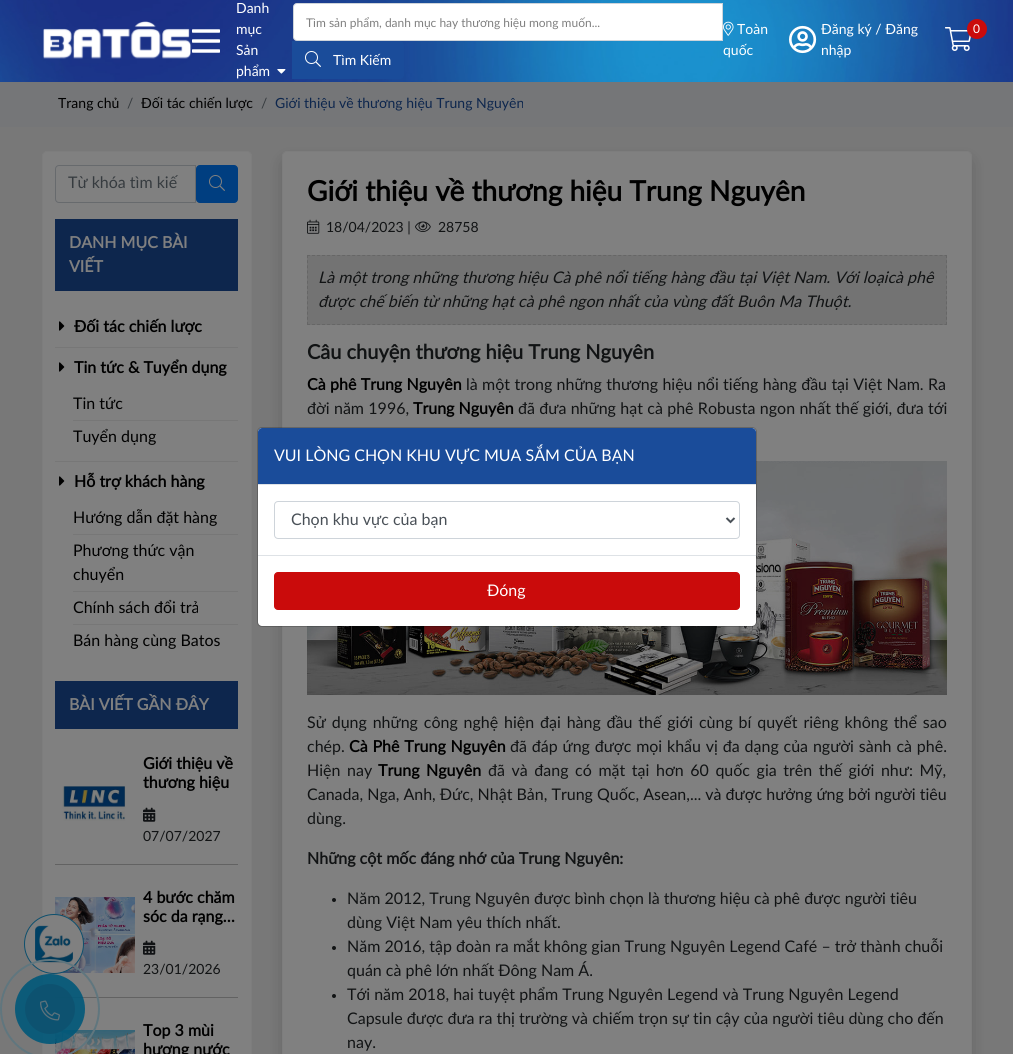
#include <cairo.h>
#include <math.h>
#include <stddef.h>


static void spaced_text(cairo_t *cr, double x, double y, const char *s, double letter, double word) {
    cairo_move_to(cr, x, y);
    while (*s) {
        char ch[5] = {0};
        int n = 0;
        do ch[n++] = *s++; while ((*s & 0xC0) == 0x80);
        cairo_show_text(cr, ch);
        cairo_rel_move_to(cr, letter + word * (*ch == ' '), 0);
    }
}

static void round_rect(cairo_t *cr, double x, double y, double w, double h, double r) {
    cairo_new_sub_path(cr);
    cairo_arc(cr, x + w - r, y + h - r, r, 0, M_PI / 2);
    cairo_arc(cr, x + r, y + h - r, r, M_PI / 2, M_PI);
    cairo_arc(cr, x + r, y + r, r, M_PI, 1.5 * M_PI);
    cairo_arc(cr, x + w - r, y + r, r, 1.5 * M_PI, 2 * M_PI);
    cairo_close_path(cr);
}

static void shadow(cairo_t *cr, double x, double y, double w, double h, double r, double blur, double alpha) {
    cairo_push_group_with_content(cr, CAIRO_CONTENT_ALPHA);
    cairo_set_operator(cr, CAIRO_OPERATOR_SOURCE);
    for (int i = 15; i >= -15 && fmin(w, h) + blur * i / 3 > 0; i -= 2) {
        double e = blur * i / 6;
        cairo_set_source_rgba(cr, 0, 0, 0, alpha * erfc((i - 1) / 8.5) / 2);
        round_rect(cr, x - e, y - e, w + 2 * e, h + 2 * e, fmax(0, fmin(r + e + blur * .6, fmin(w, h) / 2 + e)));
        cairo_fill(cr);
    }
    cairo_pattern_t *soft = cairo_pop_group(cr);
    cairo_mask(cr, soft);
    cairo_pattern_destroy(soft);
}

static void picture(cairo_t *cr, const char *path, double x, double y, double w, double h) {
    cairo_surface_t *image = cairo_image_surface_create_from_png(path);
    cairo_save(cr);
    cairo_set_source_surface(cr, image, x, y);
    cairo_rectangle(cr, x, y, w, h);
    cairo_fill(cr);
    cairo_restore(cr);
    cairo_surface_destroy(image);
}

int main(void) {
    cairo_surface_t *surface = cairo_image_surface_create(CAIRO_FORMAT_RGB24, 1013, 1054);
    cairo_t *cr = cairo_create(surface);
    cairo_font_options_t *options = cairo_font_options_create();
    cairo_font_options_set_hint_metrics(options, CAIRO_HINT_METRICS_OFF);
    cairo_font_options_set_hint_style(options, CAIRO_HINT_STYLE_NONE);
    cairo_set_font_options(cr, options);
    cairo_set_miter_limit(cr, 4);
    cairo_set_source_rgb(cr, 0.471, 0.471, 0.471);
    cairo_paint(cr);
    picture(cr, "img1.png", 0, 0, 1013, 82);
    picture(cr, "img2.png", 43, 21, 149, 38);
    picture(cr, "img3.png", 192, 29, 28, 24);
    cairo_select_font_face(cr, "Lato", CAIRO_FONT_SLANT_NORMAL, CAIRO_FONT_WEIGHT_NORMAL);
    cairo_set_font_size(cr, 14);
    cairo_set_source_rgb(cr, 1, 1, 1);
    cairo_move_to(cr, 236, 13);
    cairo_show_text(cr, "Danh");
    cairo_move_to(cr, 236, 34);
    cairo_show_text(cr, "mục");
    cairo_move_to(cr, 236, 55);
    cairo_show_text(cr, "Sản");
    cairo_move_to(cr, 236, 76);
    cairo_show_text(cr, "phẩm");
    picture(cr, "img4.png", 277, 69, 9, 5);
    cairo_new_path(cr);
    cairo_move_to(cr, 297, 3.5);
    cairo_line_to(cr, 722.5, 3.5);
    cairo_line_to(cr, 722.5, 40.5);
    cairo_line_to(cr, 297, 40.5);
    cairo_curve_to(cr, 295, 40.5, 293.5, 39, 293.5, 37);
    cairo_line_to(cr, 293.5, 7);
    cairo_curve_to(cr, 293.5, 5, 295, 3.5, 297, 3.5);
    cairo_close_path(cr);
    cairo_fill_preserve(cr);
    cairo_set_source_rgb(cr, 0.808, 0.831, 0.855);
    cairo_set_line_width(cr, 1);
    cairo_stroke(cr);
    cairo_set_font_size(cr, 12);
    cairo_set_source_rgb(cr, 0.502, 0.502, 0.502);
    cairo_move_to(cr, 306, 27);
    cairo_show_text(cr, "Tìm sản phẩm, danh mục hay thương hiệu mong muốn...");
    cairo_set_source_rgb(cr, 0.102, 0.298, 0.604);
    cairo_new_path(cr);
    cairo_move_to(cr, 292, 41);
    cairo_line_to(cr, 400, 41);
    cairo_curve_to(cr, 402, 41, 404, 43, 404, 45);
    cairo_line_to(cr, 404, 75);
    cairo_curve_to(cr, 404, 77, 402, 79, 400, 79);
    cairo_line_to(cr, 292, 79);
    cairo_close_path(cr);
    cairo_fill(cr);
    picture(cr, "img5.png", 305, 51, 16, 16);
    cairo_set_font_size(cr, 14);
    cairo_set_source_rgb(cr, 1, 1, 1);
    cairo_move_to(cr, 333, 65);
    cairo_show_text(cr, "Tìm Kiếm");
    picture(cr, "img6.png", 723, 21, 11, 15);
    cairo_move_to(cr, 737, 34);
    cairo_show_text(cr, "Toàn");
    cairo_move_to(cr, 723, 55);
    cairo_show_text(cr, "quốc");
    picture(cr, "img7.png", 789, 25, 28, 29);
    cairo_move_to(cr, 821, 34);
    cairo_show_text(cr, "Đăng ký / Đăng");
    cairo_move_to(cr, 821, 55);
    cairo_show_text(cr, "nhập");
    picture(cr, "img8.png", 945, 27, 26, 24);
    cairo_set_source_rgb(cr, 0.792, 0.043, 0.043);
    cairo_arc(cr, 977, 29, 10, 0, 2 * M_PI);
    cairo_fill(cr);
    cairo_set_font_size(cr, 12);
    cairo_set_source_rgb(cr, 1, 1, 1);
    cairo_move_to(cr, 973, 33);
    cairo_show_text(cr, "0");
    cairo_set_source_rgb(cr, 0.459, 0.463, 0.471);
    cairo_rectangle(cr, 0, 82, 1013, 45);
    cairo_fill(cr);
    cairo_set_font_size(cr, 14);
    cairo_set_source_rgb(cr, 0, 0, 0);
    cairo_move_to(cr, 58, 108);
    cairo_show_text(cr, "Trang chủ");
    cairo_set_source_rgb(cr, 0.212, 0.231, 0.247);
    cairo_move_to(cr, 127, 108);
    cairo_show_text(cr, "/");
    cairo_set_source_rgb(cr, 0, 0, 0);
    cairo_move_to(cr, 141, 108);
    cairo_show_text(cr, "Đối tác chiến lược");
    cairo_set_source_rgb(cr, 0.212, 0.231, 0.247);
    cairo_move_to(cr, 261, 108);
    cairo_show_text(cr, "/");
    cairo_set_source_rgb(cr, 0.051, 0.149, 0.302);
    cairo_move_to(cr, 275, 108);
    cairo_show_text(cr, "Giới thiệu về thương hiệu Trung Nguyên");
    cairo_set_source_rgb(cr, 0.502, 0.502, 0.502);
    round_rect(cr, 42.5, 151.5, 209, 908, 4.5);
    cairo_fill_preserve(cr);
    cairo_set_source_rgb(cr, 0.49, 0.49, 0.49);
    cairo_stroke(cr);
    cairo_new_path(cr);
    cairo_move_to(cr, 59, 165.5);
    cairo_line_to(cr, 195.5, 165.5);
    cairo_line_to(cr, 195.5, 202.5);
    cairo_line_to(cr, 59, 202.5);
    cairo_curve_to(cr, 57, 202.5, 55.5, 201, 55.5, 199);
    cairo_line_to(cr, 55.5, 169);
    cairo_curve_to(cr, 55.5, 167, 57, 165.5, 59, 165.5);
    cairo_close_path(cr);
    cairo_set_source_rgb(cr, 0.404, 0.416, 0.427);
    cairo_stroke(cr);
    cairo_set_font_size(cr, 16);
    cairo_set_source_rgb(cr, 0.212, 0.231, 0.247);
    cairo_move_to(cr, 68, 188);
    cairo_show_text(cr, "Từ khóa tìm kiế");
    cairo_set_source_rgb(cr, 0, 0.243, 0.502);
    round_rect(cr, 196.5, 165.5, 41, 37, 3.5);
    cairo_fill_preserve(cr);
    cairo_stroke(cr);
    picture(cr, "img9.png", 209, 175, 16, 16);
    cairo_set_source_rgb(cr, 0.051, 0.149, 0.302);
    cairo_rectangle(cr, 55, 219, 183, 72);
    cairo_fill(cr);
    cairo_select_font_face(cr, "Lato", CAIRO_FONT_SLANT_NORMAL, CAIRO_FONT_WEIGHT_BOLD);
    cairo_set_source_rgb(cr, 0.502, 0.502, 0.502);
    cairo_move_to(cr, 69, 248);
    cairo_show_text(cr, "DANH MỤC BÀI");
    cairo_move_to(cr, 69, 272);
    cairo_show_text(cr, "VIẾT");
    picture(cr, "img10.png", 59, 321, 6, 10);
    cairo_set_source_rgb(cr, 0, 0, 0);
    cairo_move_to(cr, 74, 332);
    cairo_show_text(cr, "Đối tác chiến lược");
    cairo_set_source_rgb(cr, 0.467, 0.467, 0.467);
    cairo_rectangle(cr, 55, 347, 183, 1);
    cairo_fill(cr);
    picture(cr, "img10.png", 59, 362, 6, 10);
    cairo_set_source_rgb(cr, 0, 0, 0);
    cairo_move_to(cr, 74, 373);
    cairo_show_text(cr, "Tin tức & Tuyển dụng");
    cairo_select_font_face(cr, "Lato", CAIRO_FONT_SLANT_NORMAL, CAIRO_FONT_WEIGHT_NORMAL);
    cairo_move_to(cr, 73, 409);
    cairo_show_text(cr, "Tin tức");
    cairo_set_source_rgb(cr, 0.467, 0.467, 0.467);
    cairo_rectangle(cr, 73, 420, 165, 1);
    cairo_fill(cr);
    cairo_set_source_rgb(cr, 0, 0, 0);
    cairo_move_to(cr, 73, 442);
    cairo_show_text(cr, "Tuyển dụng");
    cairo_set_source_rgb(cr, 0.467, 0.467, 0.467);
    cairo_rectangle(cr, 55, 461, 183, 1);
    cairo_fill(cr);
    picture(cr, "img10.png", 59, 476, 6, 10);
    cairo_select_font_face(cr, "Lato", CAIRO_FONT_SLANT_NORMAL, CAIRO_FONT_WEIGHT_BOLD);
    cairo_set_source_rgb(cr, 0, 0, 0);
    cairo_move_to(cr, 74, 487);
    cairo_show_text(cr, "Hỗ trợ khách hàng");
    cairo_select_font_face(cr, "Lato", CAIRO_FONT_SLANT_NORMAL, CAIRO_FONT_WEIGHT_NORMAL);
    cairo_move_to(cr, 73, 523);
    cairo_show_text(cr, "Hướng dẫn đặt hàng");
    cairo_set_source_rgb(cr, 0.467, 0.467, 0.467);
    cairo_rectangle(cr, 73, 534, 165, 1);
    cairo_fill(cr);
    cairo_set_source_rgb(cr, 0, 0, 0);
    cairo_move_to(cr, 73, 556);
    cairo_show_text(cr, "Phương thức vận");
    cairo_move_to(cr, 73, 580);
    cairo_show_text(cr, "chuyển");
    cairo_set_source_rgb(cr, 0.467, 0.467, 0.467);
    cairo_rectangle(cr, 73, 591, 165, 1);
    cairo_fill(cr);
    cairo_set_source_rgb(cr, 0, 0, 0);
    cairo_move_to(cr, 73, 613);
    cairo_show_text(cr, "Chính sách đổi trả");
    cairo_set_source_rgb(cr, 0.467, 0.467, 0.467);
    cairo_rectangle(cr, 73, 624, 165, 1);
    cairo_fill(cr);
    cairo_set_source_rgb(cr, 0, 0, 0);
    cairo_move_to(cr, 73, 646);
    cairo_show_text(cr, "Bán hàng cùng Batos");
    cairo_set_source_rgb(cr, 0.051, 0.149, 0.302);
    cairo_rectangle(cr, 55, 681, 183, 48);
    cairo_fill(cr);
    cairo_select_font_face(cr, "Lato", CAIRO_FONT_SLANT_NORMAL, CAIRO_FONT_WEIGHT_BOLD);
    cairo_set_source_rgb(cr, 0.502, 0.502, 0.502);
    cairo_move_to(cr, 69, 710);
    cairo_show_text(cr, "BÀI VIẾT GẦN ĐÂY");
    cairo_set_source_rgb(cr, 0.384, 0.384, 0.384);
    cairo_rectangle(cr, 55, 864, 183, 1);
    cairo_fill(cr);
    picture(cr, "img11.png", 62, 786, 64, 35);
    cairo_set_source_rgb(cr, 0, 0, 0);
    cairo_move_to(cr, 143, 769);
    cairo_show_text(cr, "Giới thiệu về");
    cairo_move_to(cr, 143, 788);
    cairo_show_text(cr, "thương hiệu");
    picture(cr, "img12.png", 143, 807, 13, 15);
    cairo_select_font_face(cr, "Lato", CAIRO_FONT_SLANT_NORMAL, CAIRO_FONT_WEIGHT_NORMAL);
    cairo_set_font_size(cr, 14);
    cairo_set_source_rgb(cr, 0.067, 0.075, 0.082);
    cairo_move_to(cr, 143, 841);
    cairo_show_text(cr, "07/07/2027");
    cairo_set_source_rgb(cr, 0.384, 0.384, 0.384);
    cairo_rectangle(cr, 55, 997, 183, 1);
    cairo_fill(cr);
    picture(cr, "img13.png", 55, 897, 80, 76);
    cairo_select_font_face(cr, "Lato", CAIRO_FONT_SLANT_NORMAL, CAIRO_FONT_WEIGHT_BOLD);
    cairo_set_font_size(cr, 16);
    cairo_set_source_rgb(cr, 0, 0, 0);
    cairo_move_to(cr, 143, 903);
    cairo_show_text(cr, "4 bước chăm");
    cairo_move_to(cr, 143, 922);
    cairo_show_text(cr, "sóc da rạng…");
    picture(cr, "img12.png", 143, 940, 13, 15);
    cairo_select_font_face(cr, "Lato", CAIRO_FONT_SLANT_NORMAL, CAIRO_FONT_WEIGHT_NORMAL);
    cairo_set_font_size(cr, 14);
    cairo_set_source_rgb(cr, 0.067, 0.075, 0.082);
    cairo_move_to(cr, 143, 974);
    cairo_show_text(cr, "23/01/2026");
    picture(cr, "img14.png", 55, 1030, 80, 24);
    cairo_select_font_face(cr, "Lato", CAIRO_FONT_SLANT_NORMAL, CAIRO_FONT_WEIGHT_BOLD);
    cairo_set_font_size(cr, 16);
    cairo_set_source_rgb(cr, 0, 0, 0);
    cairo_move_to(cr, 143, 1036);
    cairo_show_text(cr, "Top 3 mùi");
    cairo_move_to(cr, 143, 1055);
    cairo_show_text(cr, "hương nước");
    cairo_set_source_rgb(cr, 0, 0, 0);
    shadow(cr, 282, 159, 690, 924, 5, 8, 0.15);
    cairo_set_source_rgb(cr, 0.502, 0.502, 0.502);
    round_rect(cr, 282.5, 151.5, 689, 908, 4.5);
    cairo_fill_preserve(cr);
    cairo_set_source_rgb(cr, 0.49, 0.49, 0.49);
    cairo_stroke(cr);
    cairo_set_font_size(cr, 28);
    cairo_set_source_rgb(cr, 0, 0, 0);
    cairo_move_to(cr, 307, 201);
    cairo_show_text(cr, "Giới thiệu về thương hiệu Trung Nguyên");
    picture(cr, "img15.png", 307, 219, 13, 15);
    cairo_select_font_face(cr, "Lato", CAIRO_FONT_SLANT_NORMAL, CAIRO_FONT_WEIGHT_NORMAL);
    cairo_set_font_size(cr, 14);
    cairo_set_source_rgb(cr, 0.067, 0.075, 0.082);
    cairo_move_to(cr, 326, 232);
    cairo_show_text(cr, "18/04/2023 |");
    picture(cr, "img16.png", 415, 221, 16, 11);
    cairo_move_to(cr, 438, 232);
    cairo_show_text(cr, "28758");
    cairo_set_source_rgb(cr, 0.451, 0.451, 0.451);
    cairo_rectangle(cr, 307, 255, 640, 70);
    cairo_fill(cr);
    cairo_new_path(cr);
    cairo_move_to(cr, 307, 255.5);
    cairo_line_to(cr, 947, 255.5);
    cairo_set_source_rgb(cr, 0.4, 0.4, 0.4);
    cairo_set_dash(cr, (double[]){3, 2.02}, 2, 0);
    cairo_stroke(cr);
    cairo_new_path(cr);
    cairo_move_to(cr, 946.5, 255);
    cairo_line_to(cr, 946.5, 325);
    cairo_set_dash(cr, (double[]){3, 2.15}, 2, 0);
    cairo_stroke(cr);
    cairo_new_path(cr);
    cairo_move_to(cr, 307, 324.5);
    cairo_line_to(cr, 947, 324.5);
    cairo_set_dash(cr, (double[]){3, 2.02}, 2, 0);
    cairo_stroke(cr);
    cairo_new_path(cr);
    cairo_move_to(cr, 307.5, 255);
    cairo_line_to(cr, 307.5, 325);
    cairo_set_dash(cr, (double[]){3, 2.15}, 2, 0);
    cairo_stroke(cr);
    cairo_select_font_face(cr, "Lato", CAIRO_FONT_SLANT_ITALIC, CAIRO_FONT_WEIGHT_NORMAL);
    cairo_set_font_size(cr, 16);
    cairo_set_source_rgb(cr, 0.067, 0.075, 0.082);
    cairo_move_to(cr, 318, 283);
    cairo_show_text(cr, "Là một trong những thương hiệu Cà phê nổi tiếng hàng đầu tại Việt Nam. Với loạicà phê");
    cairo_move_to(cr, 318, 307);
    cairo_show_text(cr, "được chế biến từ những hạt cà phê ngon nhất của vùng đất Buôn Ma Thuột.");
    cairo_select_font_face(cr, "Lato", CAIRO_FONT_SLANT_NORMAL, CAIRO_FONT_WEIGHT_BOLD);
    cairo_set_font_size(cr, 20);
    cairo_move_to(cr, 307, 359);
    cairo_show_text(cr, "Câu chuyện thương hiệu Trung Nguyên");
    cairo_set_font_size(cr, 16);
    cairo_set_source_rgb(cr, 0, 0, 0);
    spaced_text(cr, 307, 390, "Cà phê Trung Nguyên", 0, 0.25);
    cairo_select_font_face(cr, "Lato", CAIRO_FONT_SLANT_NORMAL, CAIRO_FONT_WEIGHT_NORMAL);
    cairo_set_source_rgb(cr, 0.067, 0.075, 0.082);
    spaced_text(cr, 466, 390, "là một trong những thương hiệu nổi tiếng hàng đầu tại Việt Nam. Ra", 0, 0.25);
    spaced_text(cr, 307, 414, "đời năm 1996,", 0, 0.25);
    cairo_select_font_face(cr, "Lato", CAIRO_FONT_SLANT_NORMAL, CAIRO_FONT_WEIGHT_BOLD);
    cairo_set_source_rgb(cr, 0, 0, 0);
    cairo_move_to(cr, 413, 414);
    cairo_show_text(cr, "Trung Nguyên");
    cairo_select_font_face(cr, "Lato", CAIRO_FONT_SLANT_NORMAL, CAIRO_FONT_WEIGHT_NORMAL);
    cairo_set_source_rgb(cr, 0.067, 0.075, 0.082);
    spaced_text(cr, 518, 414, "đã đưa những hạt cà phê Robusta ngon nhất thế giới, đưa tới", 0, 0.25);
    picture(cr, "img17.png", 307, 461, 640, 234);
    spaced_text(cr, 307, 728, "Sử dụng những công nghệ hiện đại hàng đầu thế giới cùng bí quyết riêng không thể sao", 0, 1.75);
    cairo_move_to(cr, 307, 752);
    cairo_show_text(cr, "chép.");
    cairo_select_font_face(cr, "Lato", CAIRO_FONT_SLANT_NORMAL, CAIRO_FONT_WEIGHT_BOLD);
    cairo_set_source_rgb(cr, 0, 0, 0);
    spaced_text(cr, 349, 752, "Cà Phê Trung Nguyên", 0, 0.75);
    cairo_select_font_face(cr, "Lato", CAIRO_FONT_SLANT_NORMAL, CAIRO_FONT_WEIGHT_NORMAL);
    cairo_set_source_rgb(cr, 0.067, 0.075, 0.082);
    spaced_text(cr, 510, 752, "đã đáp ứng được mọi khẩu vị đa dạng của người sành cà phê.", 0, 0.75);
    spaced_text(cr, 307, 776, "Hiện nay", 0, 2.5);
    cairo_select_font_face(cr, "Lato", CAIRO_FONT_SLANT_NORMAL, CAIRO_FONT_WEIGHT_BOLD);
    cairo_set_source_rgb(cr, 0, 0, 0);
    spaced_text(cr, 378, 776, "Trung Nguyên", 0, 2.5);
    cairo_select_font_face(cr, "Lato", CAIRO_FONT_SLANT_NORMAL, CAIRO_FONT_WEIGHT_NORMAL);
    cairo_set_source_rgb(cr, 0.067, 0.075, 0.082);
    spaced_text(cr, 488, 776, "đã và đang có mặt tại hơn 60 quốc gia trên thế giới như: Mỹ,", 0, 2.5);
    cairo_move_to(cr, 307, 800);
    cairo_show_text(cr, "Canada, Nga, Anh, Đức, Nhật Bản, Trung Quốc, Asean,... và được hưởng ứng bởi người tiêu");
    cairo_move_to(cr, 307, 824);
    cairo_show_text(cr, "dùng.");
    cairo_select_font_face(cr, "Lato", CAIRO_FONT_SLANT_NORMAL, CAIRO_FONT_WEIGHT_BOLD);
    cairo_move_to(cr, 307, 864);
    cairo_show_text(cr, "Những cột mốc đáng nhớ của Trung Nguyên:");
    cairo_new_path(cr);
    cairo_arc(cr, 334, 900, 2, 0, 2 * M_PI);
    cairo_fill(cr);
    cairo_select_font_face(cr, "Lato", CAIRO_FONT_SLANT_NORMAL, CAIRO_FONT_WEIGHT_NORMAL);
    cairo_move_to(cr, 347, 904);
    cairo_show_text(cr, "Năm 2012, Trung Nguyên được bình chọn là thương hiệu cà phê được người tiêu");
    cairo_move_to(cr, 347, 928);
    cairo_show_text(cr, "dùng Việt Nam yêu thích nhất.");
    cairo_new_path(cr);
    cairo_arc(cr, 334, 948, 2, 0, 2 * M_PI);
    cairo_fill(cr);
    cairo_move_to(cr, 347, 952);
    cairo_show_text(cr, "Năm 2016, tập đoàn ra mắt không gian Trung Nguyên Legend Café – trở thành chuỗi");
    cairo_move_to(cr, 347, 976);
    cairo_show_text(cr, "quán cà phê lớn nhất Đông Nam Á.");
    cairo_new_path(cr);
    cairo_arc(cr, 334, 996, 2, 0, 2 * M_PI);
    cairo_fill(cr);
    cairo_move_to(cr, 347, 1000);
    cairo_show_text(cr, "Tới năm 2018, hai tuyệt phẩm Trung Nguyên Legend và Trung Nguyên Legend");
    cairo_move_to(cr, 347, 1024);
    cairo_show_text(cr, "Capsule được đưa ra thị trường và chiếm trọn sự tin cậy của người tiêu dùng cho đến");
    cairo_move_to(cr, 347, 1048);
    cairo_show_text(cr, "nay.");
    cairo_set_source_rgb(cr, 1, 1, 1);
    round_rect(cr, 258, 428, 498, 198, 4);
    cairo_fill(cr);
    round_rect(cr, 257.5, 427.5, 499, 199, 4.5);
    cairo_set_source_rgba(cr, 0, 0, 0, 0.2);
    cairo_set_dash(cr, NULL, 0, 0);
    cairo_stroke(cr);
    cairo_set_source_rgb(cr, 0.102, 0.298, 0.604);
    cairo_new_path(cr);
    cairo_move_to(cr, 262, 428);
    cairo_line_to(cr, 752, 428);
    cairo_curve_to(cr, 754, 428, 756, 430, 756, 432);
    cairo_line_to(cr, 756, 485);
    cairo_line_to(cr, 258, 485);
    cairo_line_to(cr, 258, 432);
    cairo_curve_to(cr, 258, 430, 260, 428, 262, 428);
    cairo_close_path(cr);
    cairo_fill(cr);
    cairo_set_source_rgb(cr, 0.871, 0.886, 0.902);
    cairo_rectangle(cr, 258, 484, 498, 1);
    cairo_fill(cr);
    cairo_set_source_rgb(cr, 1, 1, 1);
    cairo_move_to(cr, 274, 461);
    cairo_show_text(cr, "VUI LÒNG CHỌN KHU VỰC MUA SẮM CỦA BẠN");
    round_rect(cr, 274.5, 501.5, 465, 37, 3.5);
    cairo_set_source_rgb(cr, 0.808, 0.831, 0.855);
    cairo_stroke(cr);
    cairo_new_path(cr);
    cairo_move_to(cr, 726.5, 518);
    cairo_line_to(cr, 730.5, 522);
    cairo_line_to(cr, 734.5, 518);
    cairo_set_source_rgb(cr, 0.286, 0.314, 0.341);
    cairo_set_line_width(cr, 2);
    cairo_stroke(cr);
    cairo_move_to(cr, 291, 525);
    cairo_show_text(cr, "Chọn khu vực của bạn");
    cairo_set_source_rgb(cr, 0.871, 0.886, 0.902);
    cairo_rectangle(cr, 258, 555, 498, 1);
    cairo_fill(cr);
    cairo_set_source_rgb(cr, 0.792, 0.043, 0.043);
    round_rect(cr, 274.5, 572.5, 465, 37, 3.5);
    cairo_fill_preserve(cr);
    cairo_set_line_width(cr, 1);
    cairo_stroke(cr);
    cairo_set_source_rgb(cr, 1, 1, 1);
    cairo_move_to(cr, 487, 596);
    cairo_show_text(cr, "Đóng");
    cairo_set_source_rgb(cr, 0.502, 0.502, 0.502);
    cairo_new_path(cr);
    cairo_arc(cr, 54, 944, 29.5, 0, 2 * M_PI);
    cairo_fill_preserve(cr);
    cairo_set_source_rgb(cr, 0.051, 0.31, 0.427);
    cairo_stroke(cr);
    picture(cr, "img18.png", 35, 925, 38, 38);
    cairo_arc(cr, 50, 1009, 49, 0, 2 * M_PI);
    cairo_set_source_rgb(cr, 0.376, 0.463, 0.494);
    cairo_set_line_width(cr, 2);
    cairo_stroke(cr);
    cairo_set_source_rgba(cr, 0, 0.345, 0.475, 0.9);
    cairo_arc(cr, 50, 1009, 35, 0, 2 * M_PI);
    cairo_fill(cr);
    cairo_set_source_rgba(cr, 0.051, 0.31, 0.427, 0.7);
    cairo_arc(cr, 50, 1009, 25, 0, 2 * M_PI);
    cairo_fill(cr);
    picture(cr, "img19.png", 40, 1000, 20, 21);
    cairo_surface_write_to_png(surface, "page.png");
    cairo_font_options_destroy(options);
    cairo_destroy(cr);
    cairo_surface_destroy(surface);
    return 0;
}
